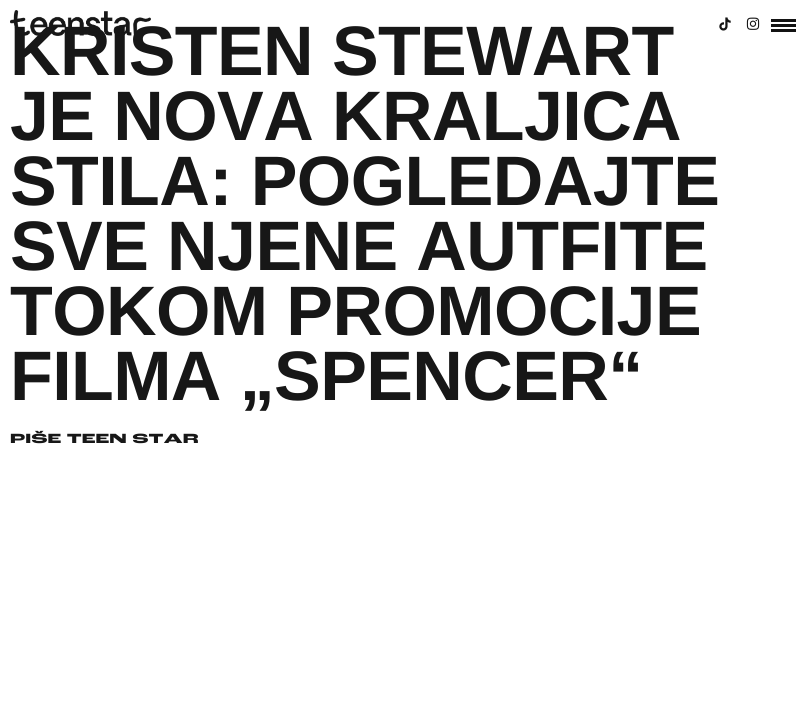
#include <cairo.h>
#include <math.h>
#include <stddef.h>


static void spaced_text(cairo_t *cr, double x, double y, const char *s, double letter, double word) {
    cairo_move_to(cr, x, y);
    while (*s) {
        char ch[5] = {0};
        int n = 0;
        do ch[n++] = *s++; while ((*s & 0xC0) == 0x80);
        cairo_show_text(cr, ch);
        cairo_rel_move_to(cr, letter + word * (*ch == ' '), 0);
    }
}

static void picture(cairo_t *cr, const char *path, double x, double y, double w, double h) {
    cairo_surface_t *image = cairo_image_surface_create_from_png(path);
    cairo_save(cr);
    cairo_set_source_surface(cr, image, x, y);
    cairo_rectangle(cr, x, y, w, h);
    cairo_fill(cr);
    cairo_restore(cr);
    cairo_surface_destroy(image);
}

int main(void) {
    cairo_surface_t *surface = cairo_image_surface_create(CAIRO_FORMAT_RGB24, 806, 714);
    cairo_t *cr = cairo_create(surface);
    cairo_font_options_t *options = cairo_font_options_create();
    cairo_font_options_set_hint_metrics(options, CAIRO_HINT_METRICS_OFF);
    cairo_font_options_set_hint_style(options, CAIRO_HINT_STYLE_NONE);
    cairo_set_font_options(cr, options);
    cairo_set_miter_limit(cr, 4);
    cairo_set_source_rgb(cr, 1, 1, 1);
    cairo_paint(cr);
    cairo_select_font_face(cr, "Liberation Sans", CAIRO_FONT_SLANT_NORMAL, CAIRO_FONT_WEIGHT_BOLD);
    cairo_set_font_size(cr, 70);
    cairo_set_source_rgb(cr, 0.09, 0.09, 0.09);
    spaced_text(cr, 10, 75, "KRISTEN STEWART", -0.6, 0);
    picture(cr, "img1.png", 10, 10, 141, 26);
    picture(cr, "img2.png", 719, 17, 12, 14);
    picture(cr, "img3.png", 746, 17, 14, 13);
    cairo_set_source_rgb(cr, 0.078, 0.078, 0.078);
    cairo_rectangle(cr, 771, 19, 25, 3);
    cairo_fill(cr);
    cairo_rectangle(cr, 771, 24, 25, 3);
    cairo_fill(cr);
    cairo_rectangle(cr, 771, 29, 25, 3);
    cairo_fill(cr);
    cairo_set_source_rgb(cr, 0.09, 0.09, 0.09);
    spaced_text(cr, 10, 140, "JE NOVA KRALJICA", -0.6, 0);
    spaced_text(cr, 10, 205, "STILA: POGLEDAJTE", -0.6, 0);
    spaced_text(cr, 10, 270, "SVE NJENE AUTFITE", -0.6, 0);
    spaced_text(cr, 10, 335, "TOKOM PROMOCIJE", -0.6, 0);
    spaced_text(cr, 10, 400, "FILMA „SPENCER“", -0.6, 0);
    cairo_select_font_face(cr, "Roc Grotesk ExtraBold", CAIRO_FONT_SLANT_NORMAL, CAIRO_FONT_WEIGHT_NORMAL);
    cairo_set_font_size(cr, 14);
    cairo_move_to(cr, 10, 443);
    cairo_show_text(cr, "PIŠE TEEN STAR");
    cairo_surface_write_to_png(surface, "page.png");
    cairo_font_options_destroy(options);
    cairo_destroy(cr);
    cairo_surface_destroy(surface);
    return 0;
}
